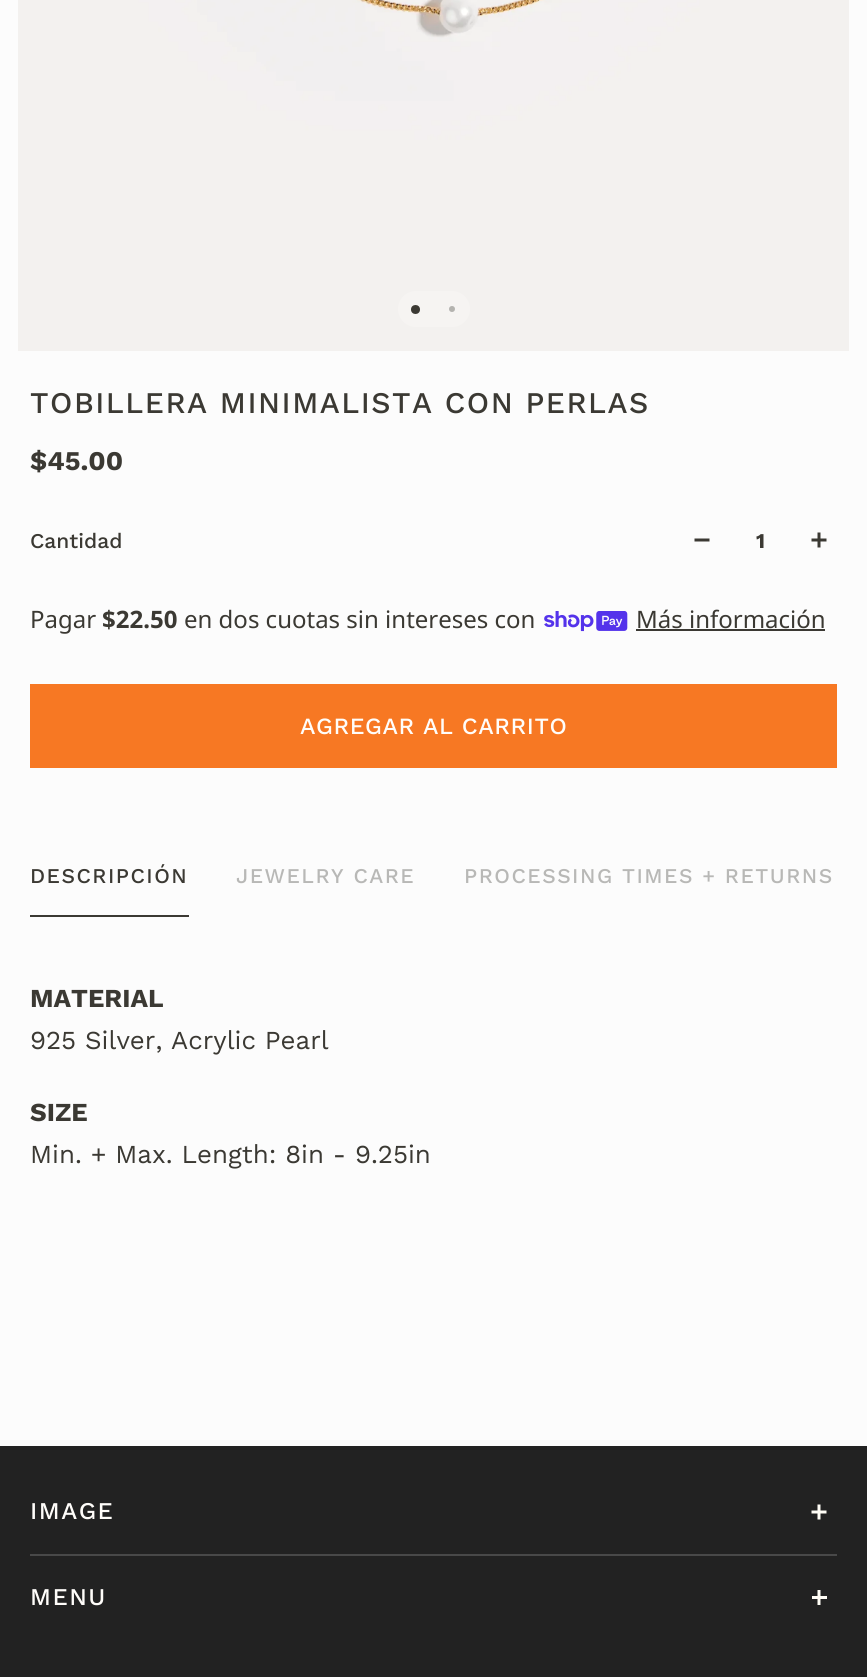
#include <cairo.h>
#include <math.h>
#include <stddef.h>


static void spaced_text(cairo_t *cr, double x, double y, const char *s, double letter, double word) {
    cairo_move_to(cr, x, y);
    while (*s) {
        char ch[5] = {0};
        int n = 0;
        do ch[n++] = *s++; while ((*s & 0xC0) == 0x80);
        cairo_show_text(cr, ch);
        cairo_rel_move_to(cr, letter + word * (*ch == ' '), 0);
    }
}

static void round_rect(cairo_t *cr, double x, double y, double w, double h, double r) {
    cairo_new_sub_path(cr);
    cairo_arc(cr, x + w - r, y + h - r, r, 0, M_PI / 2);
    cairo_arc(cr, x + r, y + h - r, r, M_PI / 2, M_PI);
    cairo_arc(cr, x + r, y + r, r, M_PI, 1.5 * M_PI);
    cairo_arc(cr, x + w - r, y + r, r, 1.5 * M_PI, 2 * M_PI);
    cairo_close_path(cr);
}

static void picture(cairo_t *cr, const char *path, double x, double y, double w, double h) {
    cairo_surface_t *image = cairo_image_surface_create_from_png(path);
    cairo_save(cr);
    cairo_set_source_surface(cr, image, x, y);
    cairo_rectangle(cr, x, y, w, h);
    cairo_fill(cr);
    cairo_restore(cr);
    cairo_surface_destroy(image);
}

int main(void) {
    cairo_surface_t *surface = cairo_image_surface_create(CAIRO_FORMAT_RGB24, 867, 1677);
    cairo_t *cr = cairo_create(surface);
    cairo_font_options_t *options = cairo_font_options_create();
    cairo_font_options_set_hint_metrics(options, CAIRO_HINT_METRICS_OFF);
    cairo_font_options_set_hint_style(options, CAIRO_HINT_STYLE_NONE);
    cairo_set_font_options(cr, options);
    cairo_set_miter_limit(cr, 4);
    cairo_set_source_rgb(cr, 0.988, 0.988, 0.988);
    cairo_paint(cr);
    picture(cr, "img1.png", 18, 0, 831, 351);
    cairo_set_source_rgb(cr, 0.961, 0.957, 0.949);
    round_rect(cr, 398, 291, 72, 36, 18);
    cairo_fill(cr);
    cairo_set_source_rgb(cr, 0.231, 0.224, 0.2);
    cairo_arc(cr, 415.5, 309.5, 4.5, 0, 2 * M_PI);
    cairo_fill(cr);
    cairo_set_source_rgb(cr, 0.706, 0.702, 0.686);
    cairo_arc(cr, 452, 309, 3, 0, 2 * M_PI);
    cairo_fill(cr);
    cairo_select_font_face(cr, "Work Sans Medium", CAIRO_FONT_SLANT_NORMAL, CAIRO_FONT_WEIGHT_NORMAL);
    cairo_set_font_size(cr, 30);
    cairo_set_source_rgb(cr, 0.231, 0.224, 0.2);
    spaced_text(cr, 30, 413, "TOBILLERA MINIMALISTA CON PERLAS", 1.5, 0);
    cairo_select_font_face(cr, "Work Sans", CAIRO_FONT_SLANT_NORMAL, CAIRO_FONT_WEIGHT_BOLD);
    cairo_set_font_size(cr, 27);
    cairo_move_to(cr, 30, 470);
    cairo_show_text(cr, "$45.00");
    cairo_select_font_face(cr, "Work Sans Medium", CAIRO_FONT_SLANT_NORMAL, CAIRO_FONT_WEIGHT_NORMAL);
    cairo_set_font_size(cr, 21);
    cairo_move_to(cr, 30, 548);
    cairo_show_text(cr, "Cantidad");
    cairo_new_path(cr);
    cairo_move_to(cr, 694.5, 540);
    cairo_line_to(cr, 709.5, 540);
    cairo_set_line_width(cr, 3);
    cairo_stroke(cr);
    cairo_select_font_face(cr, "Work Sans", CAIRO_FONT_SLANT_NORMAL, CAIRO_FONT_WEIGHT_BOLD);
    cairo_move_to(cr, 756, 548);
    cairo_show_text(cr, "1");
    cairo_new_path(cr);
    cairo_move_to(cr, 811.5, 540);
    cairo_line_to(cr, 826.5, 540);
    cairo_move_to(cr, 819, 532.5);
    cairo_line_to(cr, 819, 547.5);
    cairo_stroke(cr);
    cairo_select_font_face(cr, "Noto Sans", CAIRO_FONT_SLANT_NORMAL, CAIRO_FONT_WEIGHT_NORMAL);
    cairo_set_font_size(cr, 24);
    cairo_move_to(cr, 30, 628);
    cairo_show_text(cr, "Pagar");
    cairo_select_font_face(cr, "Noto Sans", CAIRO_FONT_SLANT_NORMAL, CAIRO_FONT_WEIGHT_BOLD);
    cairo_move_to(cr, 102, 628);
    cairo_show_text(cr, "$22.50");
    cairo_select_font_face(cr, "Noto Sans", CAIRO_FONT_SLANT_NORMAL, CAIRO_FONT_WEIGHT_NORMAL);
    cairo_move_to(cr, 184, 628);
    cairo_show_text(cr, "en dos cuotas sin intereses con");
    picture(cr, "img2.png", 544, 611, 84, 21);
    cairo_move_to(cr, 636, 628);
    cairo_show_text(cr, "Más información");
    cairo_rectangle(cr, 636, 629, 189, 2);
    cairo_fill(cr);
    cairo_set_source_rgb(cr, 0.965, 0.471, 0.137);
    cairo_rectangle(cr, 30, 684, 807, 84);
    cairo_fill(cr);
    cairo_select_font_face(cr, "Work Sans Medium", CAIRO_FONT_SLANT_NORMAL, CAIRO_FONT_WEIGHT_NORMAL);
    cairo_set_font_size(cr, 23.25);
    cairo_set_source_rgb(cr, 1, 0.992, 0.98);
    spaced_text(cr, 300, 734, "AGREGAR AL CARRITO", 0.6, 0);
    cairo_set_source_rgb(cr, 0.231, 0.224, 0.2);
    cairo_rectangle(cr, 30, 915, 159, 2);
    cairo_fill(cr);
    cairo_set_font_size(cr, 21);
    spaced_text(cr, 30, 883, "DESCRIPCIÓN", 1.5, 0);
    cairo_set_source_rgb(cr, 0.722, 0.722, 0.714);
    spaced_text(cr, 236, 883, "JEWELRY CARE", 1.5, 0);
    spaced_text(cr, 464, 883, "PROCESSING TIMES + RETURNS", 1.5, 0);
    cairo_select_font_face(cr, "Work Sans", CAIRO_FONT_SLANT_NORMAL, CAIRO_FONT_WEIGHT_BOLD);
    cairo_set_font_size(cr, 25.9);
    cairo_set_source_rgb(cr, 0.231, 0.224, 0.2);
    cairo_move_to(cr, 30, 1007);
    cairo_show_text(cr, "MATERIAL");
    cairo_select_font_face(cr, "Work Sans", CAIRO_FONT_SLANT_NORMAL, CAIRO_FONT_WEIGHT_NORMAL);
    cairo_move_to(cr, 30, 1049);
    cairo_show_text(cr, "925 Silver, Acrylic Pearl");
    cairo_select_font_face(cr, "Work Sans", CAIRO_FONT_SLANT_NORMAL, CAIRO_FONT_WEIGHT_BOLD);
    cairo_move_to(cr, 30, 1121);
    cairo_show_text(cr, "SIZE");
    cairo_select_font_face(cr, "Work Sans", CAIRO_FONT_SLANT_NORMAL, CAIRO_FONT_WEIGHT_NORMAL);
    cairo_move_to(cr, 30, 1163);
    cairo_show_text(cr, "Min. + Max. Length: 8in - 9.25in");
    cairo_set_source_rgb(cr, 0.133, 0.133, 0.133);
    cairo_rectangle(cr, 0, 1446, 867, 231);
    cairo_fill(cr);
    cairo_select_font_face(cr, "Work Sans Medium", CAIRO_FONT_SLANT_NORMAL, CAIRO_FONT_WEIGHT_NORMAL);
    cairo_set_font_size(cr, 24);
    cairo_set_source_rgb(cr, 1, 0.992, 0.98);
    spaced_text(cr, 30, 1519, "IMAGE", 1.5, 0);
    cairo_new_path(cr);
    cairo_move_to(cr, 811.5, 1512);
    cairo_line_to(cr, 826.5, 1512);
    cairo_move_to(cr, 819, 1504.5);
    cairo_line_to(cr, 819, 1519.5);
    cairo_set_source_rgb(cr, 1, 0.992, 0.961);
    cairo_stroke(cr);
    cairo_set_source_rgb(cr, 0.286, 0.286, 0.286);
    cairo_rectangle(cr, 30, 1554, 807, 2);
    cairo_fill(cr);
    cairo_set_source_rgb(cr, 1, 0.992, 0.98);
    spaced_text(cr, 30, 1605, "MENU", 1.5, 0);
    cairo_set_source_rgb(cr, 1, 0.992, 0.961);
    cairo_rectangle(cr, 812, 1596, 15, 3);
    cairo_fill(cr);
    cairo_new_path(cr);
    cairo_move_to(cr, 819, 1590);
    cairo_line_to(cr, 819, 1605);
    cairo_stroke(cr);
    cairo_surface_write_to_png(surface, "page.png");
    cairo_font_options_destroy(options);
    cairo_destroy(cr);
    cairo_surface_destroy(surface);
    return 0;
}
